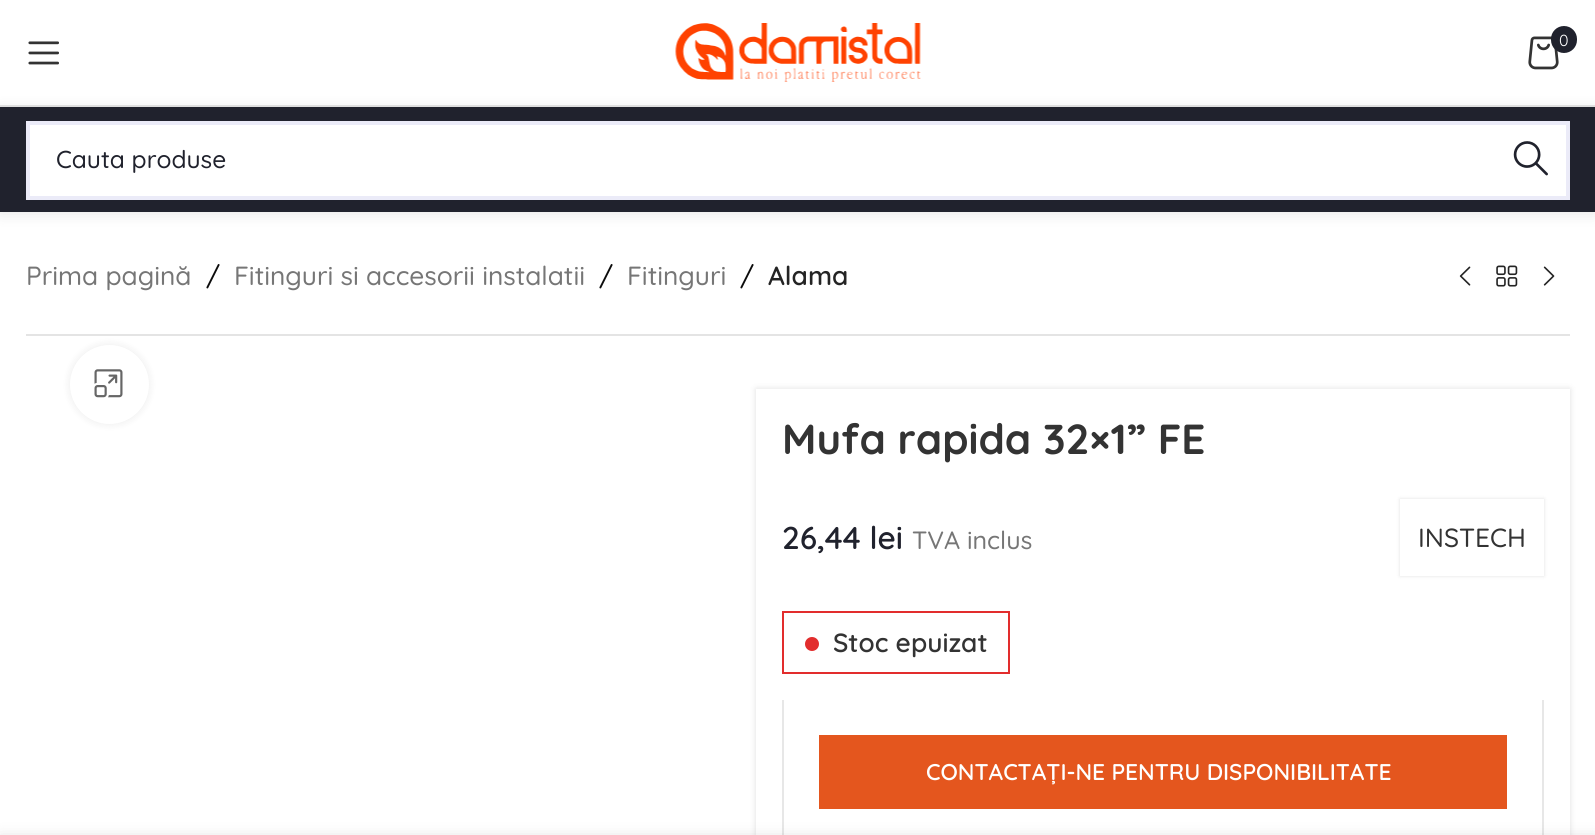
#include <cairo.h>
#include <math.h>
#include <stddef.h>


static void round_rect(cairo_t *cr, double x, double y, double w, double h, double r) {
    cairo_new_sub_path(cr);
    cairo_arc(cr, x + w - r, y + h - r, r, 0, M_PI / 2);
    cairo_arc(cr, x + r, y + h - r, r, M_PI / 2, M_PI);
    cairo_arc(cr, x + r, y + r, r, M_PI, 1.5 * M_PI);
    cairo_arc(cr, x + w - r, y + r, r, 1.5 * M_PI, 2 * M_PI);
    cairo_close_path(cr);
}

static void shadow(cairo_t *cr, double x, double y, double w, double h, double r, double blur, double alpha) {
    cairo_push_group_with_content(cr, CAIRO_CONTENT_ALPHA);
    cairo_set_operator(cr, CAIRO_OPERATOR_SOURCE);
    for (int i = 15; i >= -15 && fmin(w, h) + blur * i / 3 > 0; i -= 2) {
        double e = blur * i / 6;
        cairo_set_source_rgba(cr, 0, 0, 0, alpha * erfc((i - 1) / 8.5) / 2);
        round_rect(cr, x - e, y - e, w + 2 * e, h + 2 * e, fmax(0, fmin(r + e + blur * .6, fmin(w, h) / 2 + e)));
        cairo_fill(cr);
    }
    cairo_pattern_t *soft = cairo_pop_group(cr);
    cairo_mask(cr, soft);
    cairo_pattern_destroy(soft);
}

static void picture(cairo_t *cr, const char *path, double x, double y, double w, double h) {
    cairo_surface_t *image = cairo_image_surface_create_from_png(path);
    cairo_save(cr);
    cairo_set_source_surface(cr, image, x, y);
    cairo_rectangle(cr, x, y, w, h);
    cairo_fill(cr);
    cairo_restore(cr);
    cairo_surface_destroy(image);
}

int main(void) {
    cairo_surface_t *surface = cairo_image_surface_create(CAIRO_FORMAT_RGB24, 1595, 835);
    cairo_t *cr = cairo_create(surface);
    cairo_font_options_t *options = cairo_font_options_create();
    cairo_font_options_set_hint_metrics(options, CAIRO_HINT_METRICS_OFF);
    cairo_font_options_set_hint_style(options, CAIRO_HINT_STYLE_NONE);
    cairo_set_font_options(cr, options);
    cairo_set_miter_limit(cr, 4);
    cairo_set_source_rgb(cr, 1, 1, 1);
    cairo_paint(cr);
    cairo_set_source_rgb(cr, 0.902, 0.902, 0.902);
    cairo_rectangle(cr, 0, 105, 1595, 2);
    cairo_fill(cr);
    picture(cr, "img1.png", 28, 41, 31, 24);
    picture(cr, "img2.png", 675, 23, 246, 59);
    picture(cr, "img3.png", 1528, 36, 31, 34);
    cairo_set_source_rgb(cr, 0.125, 0.133, 0.176);
    round_rect(cr, 1551, 26, 26, 27, 13);
    cairo_fill(cr);
    cairo_select_font_face(cr, "Quicksand", CAIRO_FONT_SLANT_NORMAL, CAIRO_FONT_WEIGHT_NORMAL);
    cairo_set_font_size(cr, 16);
    cairo_set_source_rgb(cr, 1, 1, 1);
    cairo_move_to(cr, 1559, 46);
    cairo_show_text(cr, "0");
    cairo_set_source_rgb(cr, 0, 0, 0);
    shadow(cr, 0, 109, 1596, 105, 0, 7, 0.1);
    cairo_set_source_rgb(cr, 0.125, 0.133, 0.176);
    cairo_rectangle(cr, 0, 107, 1595, 105);
    cairo_fill(cr);
    cairo_set_source_rgb(cr, 1, 1, 1);
    cairo_rectangle(cr, 28, 123, 1540, 75);
    cairo_fill_preserve(cr);
    cairo_set_source_rgb(cr, 0.918, 0.918, 0.969);
    cairo_set_line_width(cr, 4);
    cairo_stroke(cr);
    cairo_select_font_face(cr, "Quicksand Medium", CAIRO_FONT_SLANT_NORMAL, CAIRO_FONT_WEIGHT_NORMAL);
    cairo_set_font_size(cr, 24.5);
    cairo_set_source_rgb(cr, 0.125, 0.133, 0.176);
    cairo_move_to(cr, 56, 168);
    cairo_show_text(cr, "Cauta produse");
    picture(cr, "img4.png", 1513, 141, 35, 35);
    cairo_set_source_rgb(cr, 0.894, 0.894, 0.894);
    cairo_rectangle(cr, 26, 334, 1544, 2);
    cairo_fill(cr);
    cairo_set_font_size(cr, 26.25);
    cairo_set_source_rgb(cr, 0.463, 0.463, 0.463);
    cairo_move_to(cr, 26, 285);
    cairo_show_text(cr, "Prima pagină");
    cairo_set_source_rgb(cr, 0.047, 0.047, 0.047);
    cairo_move_to(cr, 206, 285);
    cairo_show_text(cr, "/");
    cairo_set_source_rgb(cr, 0.463, 0.463, 0.463);
    cairo_move_to(cr, 234, 285);
    cairo_show_text(cr, "Fitinguri si accesorii instalatii");
    cairo_set_source_rgb(cr, 0.047, 0.047, 0.047);
    cairo_move_to(cr, 599, 285);
    cairo_show_text(cr, "/");
    cairo_set_source_rgb(cr, 0.463, 0.463, 0.463);
    cairo_move_to(cr, 627, 285);
    cairo_show_text(cr, "Fitinguri");
    cairo_set_source_rgb(cr, 0.047, 0.047, 0.047);
    cairo_move_to(cr, 740, 285);
    cairo_show_text(cr, "/");
    cairo_select_font_face(cr, "Quicksand SemiBold", CAIRO_FONT_SLANT_NORMAL, CAIRO_FONT_WEIGHT_NORMAL);
    cairo_set_source_rgb(cr, 0.141, 0.141, 0.141);
    cairo_move_to(cr, 768, 285);
    cairo_show_text(cr, "Alama");
    picture(cr, "img5.png", 1459, 266, 12, 20);
    picture(cr, "img6.png", 1496, 265, 22, 22);
    picture(cr, "img7.png", 1543, 266, 12, 20);
    cairo_set_source_rgb(cr, 0, 0, 0);
    shadow(cr, 70, 345, 79, 79, 39.5, 4.5, 0.08);
    cairo_set_source_rgb(cr, 1, 1, 1);
    cairo_arc(cr, 109.5, 384.5, 39.5, 0, 2 * M_PI);
    cairo_fill(cr);
    picture(cr, "img8.png", 94, 369, 29, 29);
    cairo_save(cr);
    cairo_set_fill_rule(cr, CAIRO_FILL_RULE_EVEN_ODD);
    cairo_new_path(cr);
    cairo_move_to(cr, 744, 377);
    cairo_line_to(cr, 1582, 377);
    cairo_line_to(cr, 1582, 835);
    cairo_line_to(cr, 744, 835);
    cairo_close_path(cr);
    cairo_move_to(cr, 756, 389);
    cairo_line_to(cr, 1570, 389);
    cairo_line_to(cr, 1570, 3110);
    cairo_line_to(cr, 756, 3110);
    cairo_close_path(cr);
    cairo_clip(cr);
    cairo_set_source_rgb(cr, 0, 0, 0);
    shadow(cr, 756, 389, 814, 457, 0, 3.5, 0.12);
    cairo_restore(cr);
    cairo_select_font_face(cr, "Quicksand", CAIRO_FONT_SLANT_NORMAL, CAIRO_FONT_WEIGHT_BOLD);
    cairo_set_font_size(cr, 42);
    cairo_set_source_rgb(cr, 0.2, 0.2, 0.2);
    cairo_move_to(cr, 782, 454);
    cairo_show_text(cr, "Mufa rapida 32×1” FE");
    cairo_select_font_face(cr, "Quicksand SemiBold", CAIRO_FONT_SLANT_NORMAL, CAIRO_FONT_WEIGHT_NORMAL);
    cairo_set_font_size(cr, 31.5);
    cairo_set_source_rgb(cr, 0.125, 0.133, 0.176);
    cairo_move_to(cr, 782, 549);
    cairo_show_text(cr, "26,44 lei");
    cairo_select_font_face(cr, "Quicksand Medium", CAIRO_FONT_SLANT_NORMAL, CAIRO_FONT_WEIGHT_NORMAL);
    cairo_set_font_size(cr, 25);
    cairo_set_source_rgb(cr, 0.463, 0.463, 0.463);
    cairo_move_to(cr, 912, 549);
    cairo_show_text(cr, "TVA inclus");
    cairo_set_source_rgb(cr, 0, 0, 0);
    shadow(cr, 1400, 499, 144, 77, 0, 2, 0.12);
    cairo_set_source_rgb(cr, 1, 1, 1);
    cairo_rectangle(cr, 1400, 499, 144, 77);
    cairo_fill(cr);
    cairo_set_font_size(cr, 26.25);
    cairo_set_source_rgb(cr, 0.2, 0.2, 0.2);
    cairo_move_to(cr, 1418, 547);
    cairo_show_text(cr, "INSTECH");
    cairo_rectangle(cr, 783, 612, 226, 61);
    cairo_set_source_rgb(cr, 0.886, 0.176, 0.176);
    cairo_set_line_width(cr, 2);
    cairo_stroke(cr);
    cairo_arc(cr, 812, 644, 7, 0, 2 * M_PI);
    cairo_fill(cr);
    cairo_select_font_face(cr, "Quicksand SemiBold", CAIRO_FONT_SLANT_NORMAL, CAIRO_FONT_WEIGHT_NORMAL);
    cairo_set_source_rgb(cr, 0.2, 0.2, 0.2);
    cairo_move_to(cr, 833, 652);
    cairo_show_text(cr, "Stoc epuizat");
    cairo_set_source_rgb(cr, 0.906, 0.906, 0.906);
    cairo_new_path(cr);
    cairo_move_to(cr, 1544, 700);
    cairo_line_to(cr, 1544, 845);
    cairo_line_to(cr, 1542, 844);
    cairo_line_to(cr, 1542, 700);
    cairo_close_path(cr);
    cairo_fill(cr);
    cairo_new_path(cr);
    cairo_move_to(cr, 782, 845);
    cairo_line_to(cr, 782, 700);
    cairo_line_to(cr, 784, 700);
    cairo_line_to(cr, 784, 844);
    cairo_close_path(cr);
    cairo_fill(cr);
    cairo_set_source_rgb(cr, 0.894, 0.337, 0.118);
    cairo_rectangle(cr, 819, 735, 688, 74);
    cairo_fill(cr);
    cairo_set_font_size(cr, 22.75);
    cairo_set_source_rgb(cr, 1, 1, 1);
    cairo_move_to(cr, 926, 780);
    cairo_show_text(cr, "CONTACTAȚI-NE PENTRU DISPONIBILITATE");
    cairo_set_source_rgb(cr, 0, 0, 0);
    shadow(cr, 0, 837, 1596, 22, 0, 8, 0.12);
    cairo_surface_write_to_png(surface, "page.png");
    cairo_font_options_destroy(options);
    cairo_destroy(cr);
    cairo_surface_destroy(surface);
    return 0;
}
